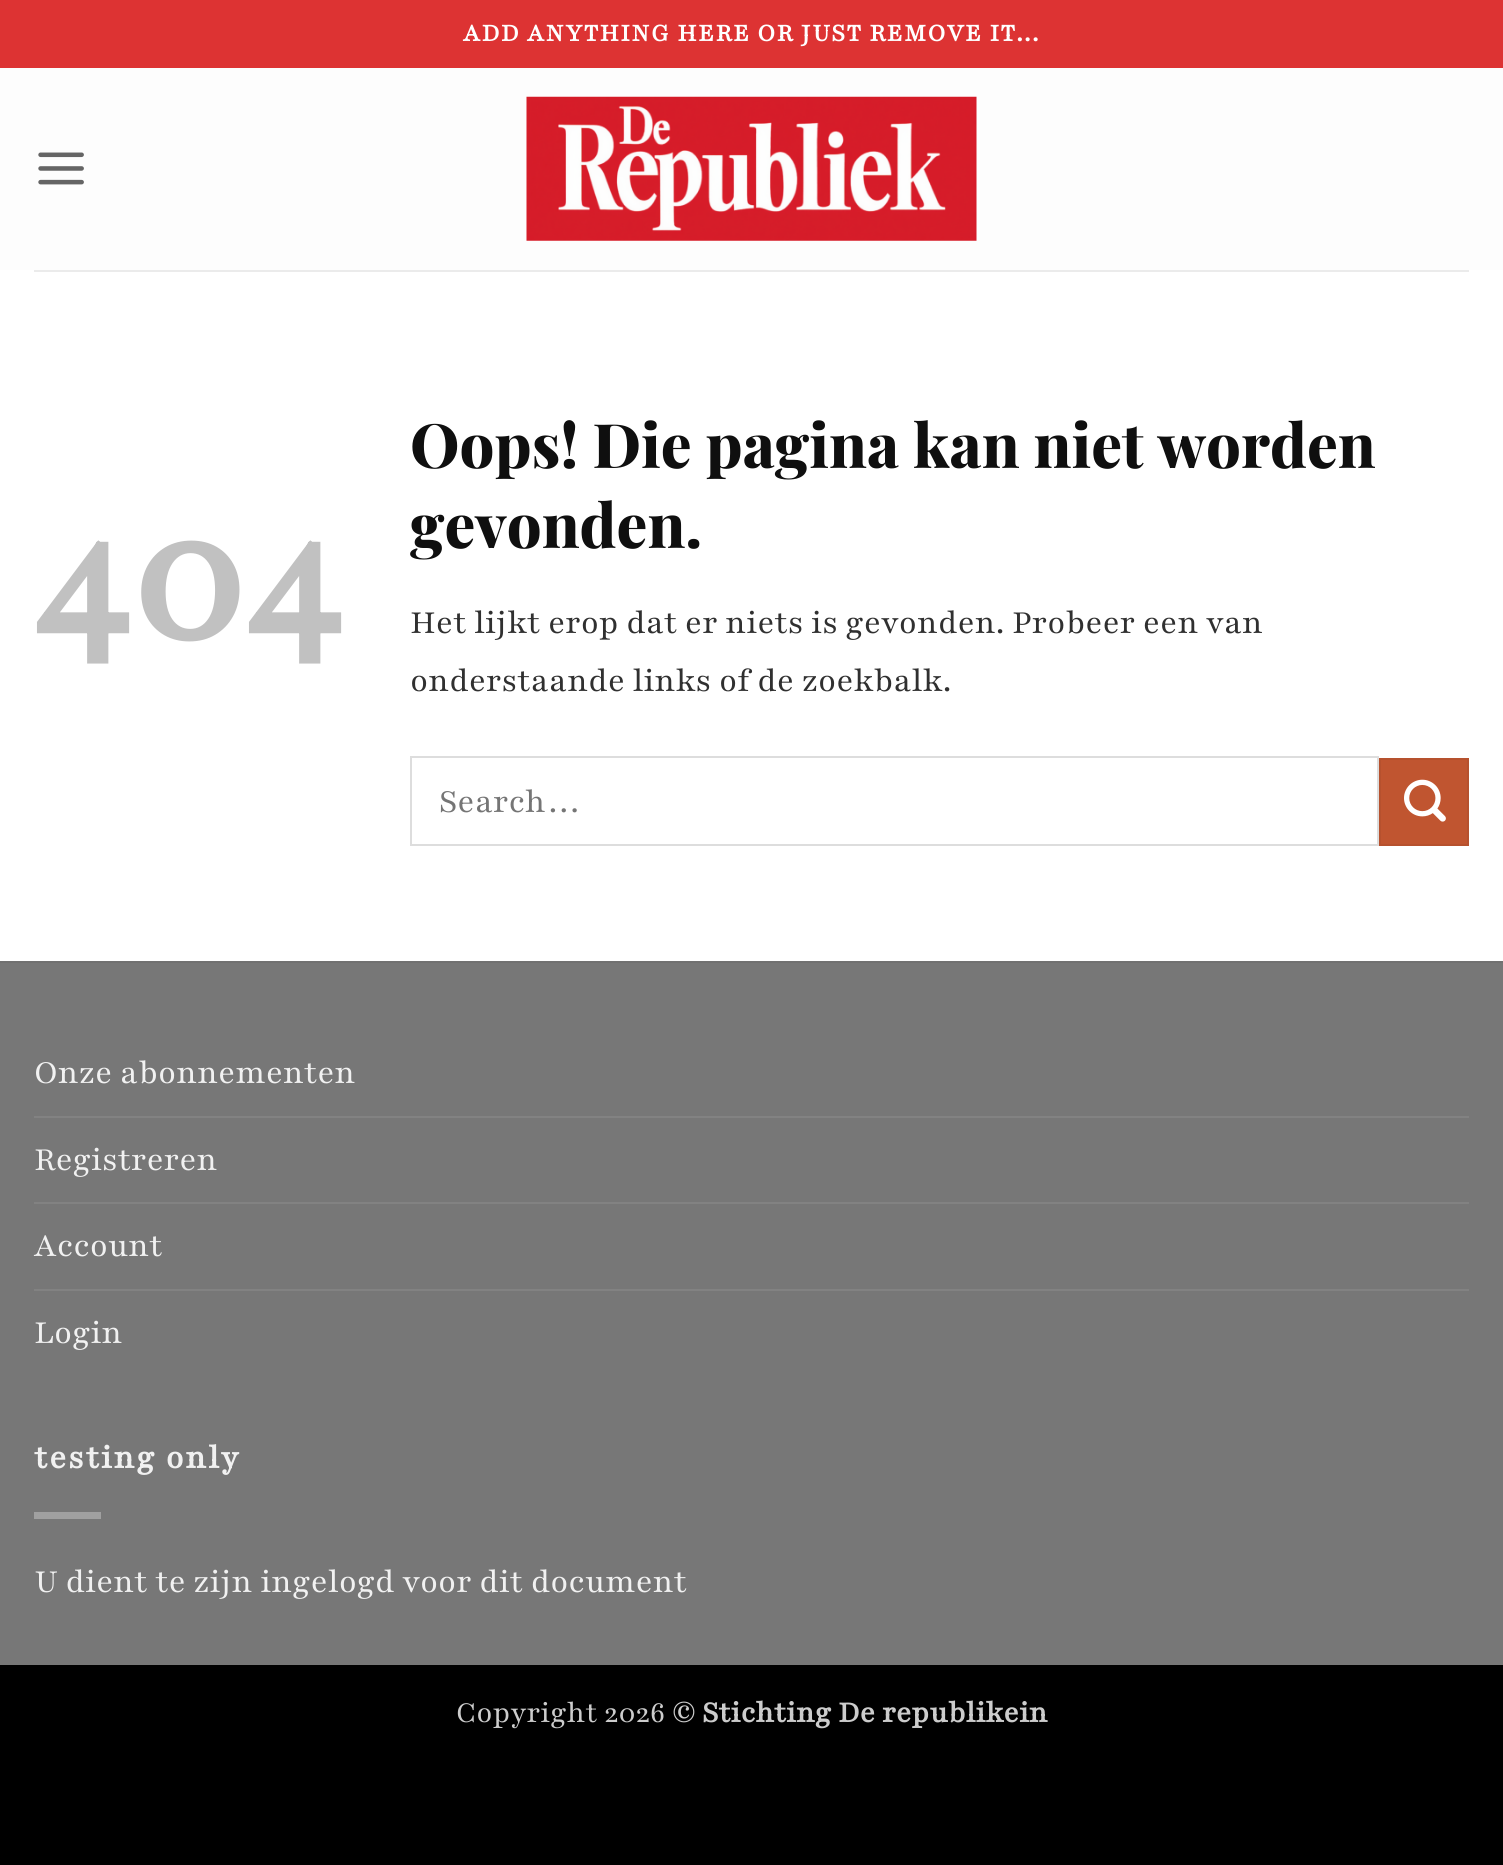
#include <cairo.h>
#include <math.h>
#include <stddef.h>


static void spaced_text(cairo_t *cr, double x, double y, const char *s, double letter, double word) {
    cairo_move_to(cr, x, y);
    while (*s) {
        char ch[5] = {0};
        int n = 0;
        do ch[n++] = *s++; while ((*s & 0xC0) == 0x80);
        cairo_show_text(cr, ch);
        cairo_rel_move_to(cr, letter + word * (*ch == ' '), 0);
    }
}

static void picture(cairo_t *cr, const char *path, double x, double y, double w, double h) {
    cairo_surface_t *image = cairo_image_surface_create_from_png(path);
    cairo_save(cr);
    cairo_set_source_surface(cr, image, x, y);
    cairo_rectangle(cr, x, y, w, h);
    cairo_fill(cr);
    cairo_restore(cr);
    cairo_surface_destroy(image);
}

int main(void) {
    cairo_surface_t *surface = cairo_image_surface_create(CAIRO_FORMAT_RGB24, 1503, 1865);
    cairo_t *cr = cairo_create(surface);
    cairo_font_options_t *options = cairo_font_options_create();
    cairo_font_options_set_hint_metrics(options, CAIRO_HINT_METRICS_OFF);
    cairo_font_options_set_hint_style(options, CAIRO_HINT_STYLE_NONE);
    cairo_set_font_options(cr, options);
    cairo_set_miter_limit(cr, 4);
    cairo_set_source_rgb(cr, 0, 0, 0);
    cairo_paint(cr);
    cairo_set_source_rgb(cr, 0.867, 0.2, 0.2);
    cairo_rectangle(cr, 0, 0, 1503, 68);
    cairo_fill(cr);
    cairo_select_font_face(cr, "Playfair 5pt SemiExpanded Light", CAIRO_FONT_SLANT_NORMAL, CAIRO_FONT_WEIGHT_BOLD);
    cairo_set_font_size(cr, 27);
    cairo_set_source_rgb(cr, 1, 1, 1);
    spaced_text(cr, 463, 41, "ADD ANYTHING HERE OR JUST REMOVE IT...", 1.35, 0);
    cairo_set_source_rgb(cr, 0.992, 0.992, 0.992);
    cairo_rectangle(cr, 0, 68, 1503, 202);
    cairo_fill(cr);
    picture(cr, "img1.png", 38, 152, 46, 33);
    picture(cr, "img2.png", 526, 96, 451, 145);
    cairo_set_source_rgb(cr, 1, 1, 1);
    cairo_rectangle(cr, 0, 270, 1503, 691);
    cairo_fill(cr);
    cairo_set_source_rgb(cr, 0.918, 0.918, 0.918);
    cairo_rectangle(cr, 34, 270, 1435, 2);
    cairo_fill(cr);
    cairo_set_font_size(cr, 216);
    cairo_set_source_rgb(cr, 0.757, 0.757, 0.757);
    cairo_move_to(cr, 34, 639);
    cairo_show_text(cr, "404");
    cairo_select_font_face(cr, "Playfair Display ExtraBold", CAIRO_FONT_SLANT_NORMAL, CAIRO_FONT_WEIGHT_NORMAL);
    cairo_set_font_size(cr, 61.25);
    cairo_set_source_rgb(cr, 0.059, 0.059, 0.059);
    cairo_move_to(cr, 410, 468);
    cairo_show_text(cr, "Oops! Die pagina kan niet worden");
    cairo_move_to(cr, 410, 548);
    cairo_show_text(cr, "gevonden.");
    cairo_select_font_face(cr, "Playfair 5pt SemiExpanded Light Light", CAIRO_FONT_SLANT_NORMAL, CAIRO_FONT_WEIGHT_NORMAL);
    cairo_set_font_size(cr, 36);
    cairo_set_source_rgb(cr, 0.188, 0.188, 0.188);
    cairo_move_to(cr, 410, 633);
    cairo_show_text(cr, "Het lijkt erop dat er niets is gevonden. Probeer een van");
    cairo_move_to(cr, 410, 691);
    cairo_show_text(cr, "onderstaande links of de zoekbalk.");
    cairo_rectangle(cr, 411, 757, 967, 88);
    cairo_set_source_rgb(cr, 0.867, 0.867, 0.867);
    cairo_stroke(cr);
    cairo_set_source_rgb(cr, 0.459, 0.459, 0.459);
    cairo_move_to(cr, 439, 812);
    cairo_show_text(cr, "Search…");
    cairo_set_source_rgb(cr, 0.753, 0.333, 0.188);
    cairo_rectangle(cr, 1380, 759, 88, 86);
    cairo_fill_preserve(cr);
    cairo_set_source_rgb(cr, 0.714, 0.318, 0.18);
    cairo_stroke(cr);
    picture(cr, "img3.png", 1404, 779, 42, 43);
    cairo_set_source_rgb(cr, 0.467, 0.467, 0.467);
    cairo_rectangle(cr, 0, 963, 1503, 702);
    cairo_fill(cr);
    cairo_set_source_rgb(cr, 0.443, 0.443, 0.443);
    cairo_rectangle(cr, 0, 961, 1503, 2);
    cairo_fill(cr);
    cairo_set_source_rgb(cr, 0.945, 0.945, 0.945);
    cairo_move_to(cr, 34, 1083);
    cairo_show_text(cr, "Onze abonnementen");
    cairo_set_source_rgb(cr, 0.51, 0.51, 0.51);
    cairo_rectangle(cr, 34, 1116, 1435, 2);
    cairo_fill(cr);
    cairo_set_source_rgb(cr, 0.945, 0.945, 0.945);
    cairo_move_to(cr, 34, 1170);
    cairo_show_text(cr, "Registreren");
    cairo_set_source_rgb(cr, 0.51, 0.51, 0.51);
    cairo_rectangle(cr, 34, 1202, 1435, 2);
    cairo_fill(cr);
    cairo_set_source_rgb(cr, 0.945, 0.945, 0.945);
    cairo_move_to(cr, 34, 1256);
    cairo_show_text(cr, "Account");
    cairo_set_source_rgb(cr, 0.51, 0.51, 0.51);
    cairo_rectangle(cr, 34, 1289, 1435, 2);
    cairo_fill(cr);
    cairo_set_source_rgb(cr, 0.945, 0.945, 0.945);
    cairo_move_to(cr, 34, 1343);
    cairo_show_text(cr, "Login");
    cairo_select_font_face(cr, "Playfair 5pt SemiExpanded Light", CAIRO_FONT_SLANT_NORMAL, CAIRO_FONT_WEIGHT_BOLD);
    spaced_text(cr, 34, 1468, "testing only", 1.75, 0);
    cairo_set_source_rgb(cr, 0.627, 0.627, 0.627);
    cairo_rectangle(cr, 34, 1512, 67, 7);
    cairo_fill(cr);
    cairo_select_font_face(cr, "Playfair 5pt SemiExpanded Light Light", CAIRO_FONT_SLANT_NORMAL, CAIRO_FONT_WEIGHT_NORMAL);
    cairo_set_source_rgb(cr, 0.945, 0.945, 0.945);
    cairo_move_to(cr, 34, 1592);
    cairo_show_text(cr, "U dient te zijn ingelogd voor dit document");
    cairo_set_font_size(cr, 32.4);
    cairo_set_source_rgb(cr, 0.8, 0.8, 0.8);
    cairo_move_to(cr, 456, 1722);
    cairo_show_text(cr, "Copyright 2026 ©");
    cairo_select_font_face(cr, "Playfair 5pt SemiExpanded Light", CAIRO_FONT_SLANT_NORMAL, CAIRO_FONT_WEIGHT_BOLD);
    cairo_move_to(cr, 702, 1722);
    cairo_show_text(cr, "Stichting De republikein");
    cairo_surface_write_to_png(surface, "page.png");
    cairo_font_options_destroy(options);
    cairo_destroy(cr);
    cairo_surface_destroy(surface);
    return 0;
}
